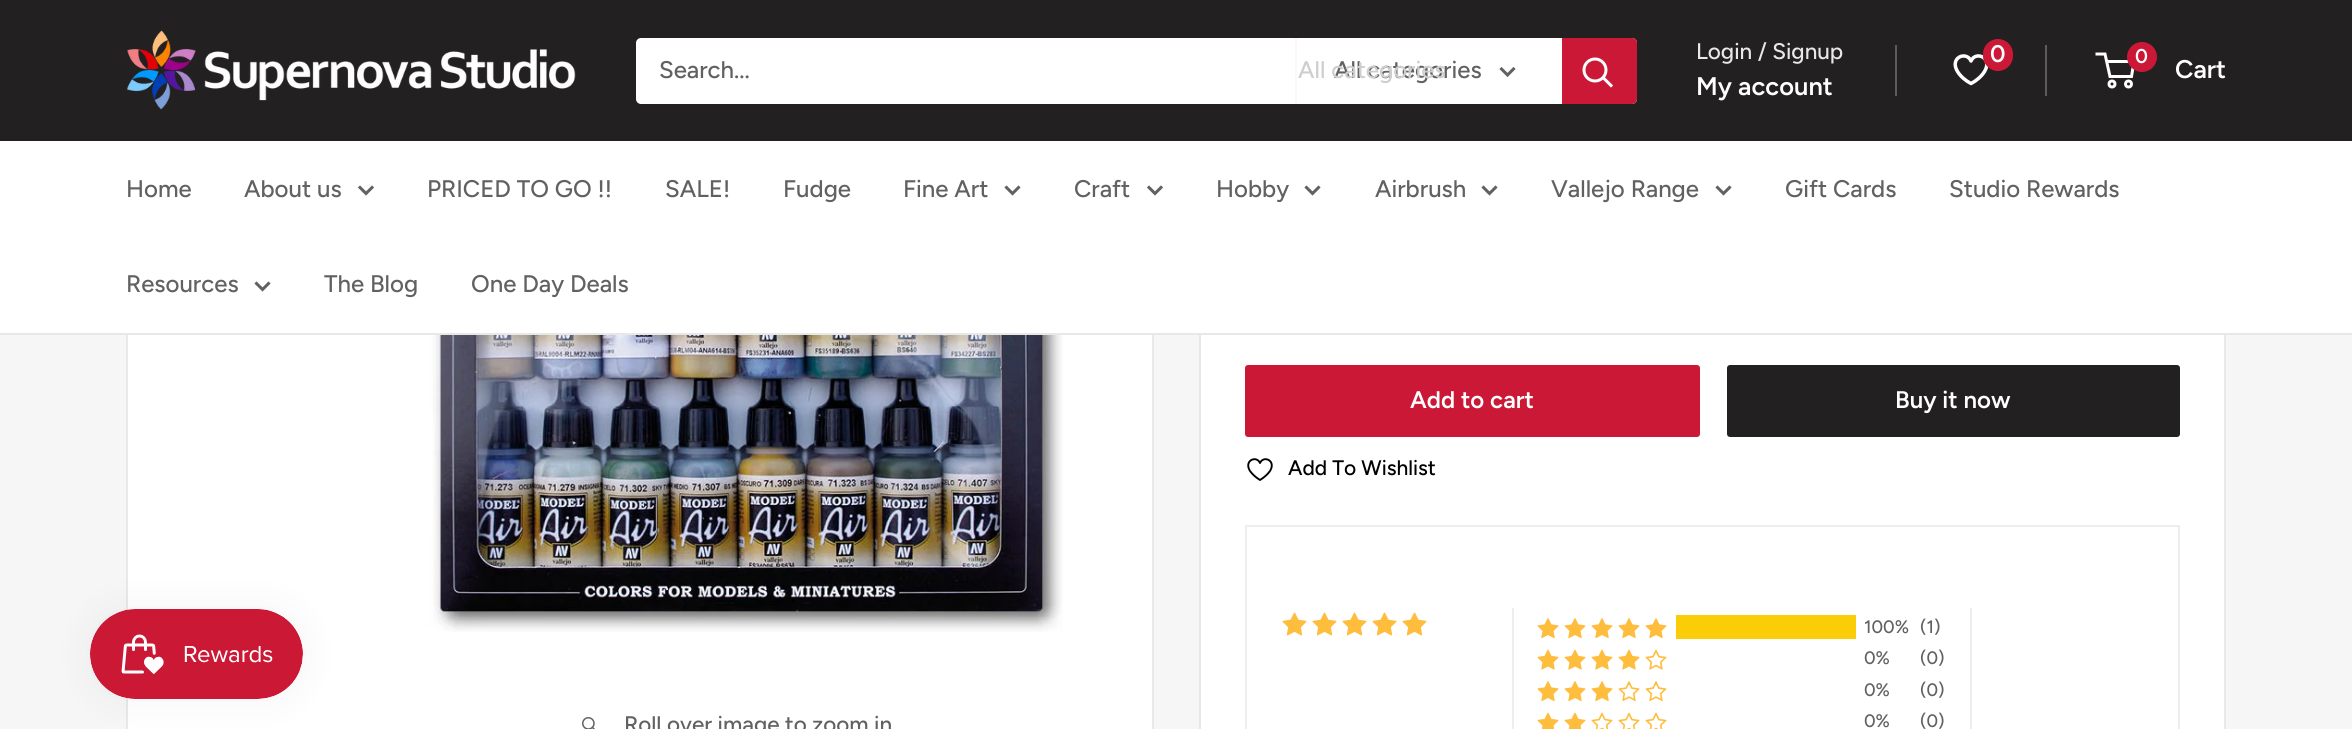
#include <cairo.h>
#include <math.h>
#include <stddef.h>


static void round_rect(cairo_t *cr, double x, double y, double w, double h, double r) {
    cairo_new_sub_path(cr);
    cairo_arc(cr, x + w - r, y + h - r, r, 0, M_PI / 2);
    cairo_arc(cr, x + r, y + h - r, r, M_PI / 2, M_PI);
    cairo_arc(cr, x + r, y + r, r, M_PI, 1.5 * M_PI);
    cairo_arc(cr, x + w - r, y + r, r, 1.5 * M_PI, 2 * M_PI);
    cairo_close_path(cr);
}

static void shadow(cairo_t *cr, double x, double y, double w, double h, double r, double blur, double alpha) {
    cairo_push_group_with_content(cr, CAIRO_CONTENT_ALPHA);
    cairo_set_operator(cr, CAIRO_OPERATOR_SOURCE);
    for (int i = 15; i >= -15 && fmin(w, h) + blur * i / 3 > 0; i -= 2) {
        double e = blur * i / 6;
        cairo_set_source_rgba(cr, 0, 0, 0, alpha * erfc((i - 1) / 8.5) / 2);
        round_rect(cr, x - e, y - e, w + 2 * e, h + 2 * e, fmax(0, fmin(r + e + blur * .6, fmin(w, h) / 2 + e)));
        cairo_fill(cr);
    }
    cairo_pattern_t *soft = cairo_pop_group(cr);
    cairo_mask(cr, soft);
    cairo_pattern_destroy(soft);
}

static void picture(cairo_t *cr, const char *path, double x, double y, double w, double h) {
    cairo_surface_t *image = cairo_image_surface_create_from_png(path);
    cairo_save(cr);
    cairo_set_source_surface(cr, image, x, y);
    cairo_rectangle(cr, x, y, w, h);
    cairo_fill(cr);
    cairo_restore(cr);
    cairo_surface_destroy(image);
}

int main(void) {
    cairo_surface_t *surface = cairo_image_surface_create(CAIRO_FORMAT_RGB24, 2352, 729);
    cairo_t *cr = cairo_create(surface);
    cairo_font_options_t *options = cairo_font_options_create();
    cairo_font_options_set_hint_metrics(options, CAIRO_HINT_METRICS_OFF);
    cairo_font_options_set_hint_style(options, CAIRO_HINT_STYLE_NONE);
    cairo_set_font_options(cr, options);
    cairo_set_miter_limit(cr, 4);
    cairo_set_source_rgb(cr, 0.961, 0.961, 0.961);
    cairo_paint(cr);
    cairo_set_source_rgb(cr, 1, 1, 1);
    cairo_rectangle(cr, 128, 335, 1024, 394);
    cairo_fill(cr);
    cairo_rectangle(cr, 127, -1, 1026, 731);
    cairo_set_source_rgb(cr, 0.91, 0.91, 0.91);
    cairo_stroke(cr);
    cairo_set_source_rgb(cr, 1, 1, 1);
    cairo_rectangle(cr, 1201, 335, 1023, 394);
    cairo_fill(cr);
    cairo_rectangle(cr, 1200, -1, 1025, 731);
    cairo_set_source_rgb(cr, 0.91, 0.91, 0.91);
    cairo_stroke(cr);
    cairo_set_source_rgb(cr, 0.133, 0.125, 0.129);
    cairo_rectangle(cr, 0, 0, 2352, 141);
    cairo_fill(cr);
    picture(cr, "img1.png", 126, 30, 450, 80);
    cairo_set_source_rgb(cr, 1, 1, 1);
    round_rect(cr, 636, 38, 1001, 66, 5);
    cairo_fill(cr);
    cairo_select_font_face(cr, "Figtree Medium", CAIRO_FONT_SLANT_NORMAL, CAIRO_FONT_WEIGHT_NORMAL);
    cairo_set_font_size(cr, 24);
    cairo_set_source_rgb(cr, 0.38, 0.38, 0.38);
    cairo_move_to(cr, 659, 78);
    cairo_show_text(cr, "Search...");
    cairo_set_source_rgb(cr, 0.973, 0.973, 0.973);
    cairo_rectangle(cr, 1295, 38, 2, 66);
    cairo_fill(cr);
    cairo_set_source_rgb(cr, 0.38, 0.38, 0.38);
    cairo_move_to(cr, 1334, 78);
    cairo_show_text(cr, "All categories");
    cairo_set_source_rgb(cr, 0.808, 0.808, 0.808);
    cairo_move_to(cr, 1298, 78);
    cairo_show_text(cr, "All categories");
    cairo_new_path(cr);
    cairo_move_to(cr, 1513.5, 69);
    cairo_line_to(cr, 1507.5, 75);
    cairo_line_to(cr, 1501.5, 69);
    cairo_set_source_rgb(cr, 0.38, 0.38, 0.38);
    cairo_set_line_width(cr, 3);
    cairo_set_line_cap(cr, CAIRO_LINE_CAP_SQUARE);
    cairo_stroke(cr);
    cairo_set_source_rgb(cr, 0.796, 0.094, 0.212);
    cairo_new_path(cr);
    cairo_move_to(cr, 1562, 38);
    cairo_line_to(cr, 1632, 38);
    cairo_curve_to(cr, 1635, 38, 1637, 40, 1637, 43);
    cairo_line_to(cr, 1637, 99);
    cairo_curve_to(cr, 1637, 102, 1635, 104, 1632, 104);
    cairo_line_to(cr, 1562, 104);
    cairo_close_path(cr);
    cairo_fill(cr);
    cairo_new_path(cr);
    cairo_move_to(cr, 1611, 85.5);
    cairo_line_to(cr, 1603.5, 78);
    cairo_set_source_rgb(cr, 1, 1, 1);
    cairo_stroke(cr);
    cairo_arc(cr, 1595, 70, 11, 0, 2 * M_PI);
    cairo_set_line_cap(cr, CAIRO_LINE_CAP_BUTT);
    cairo_stroke(cr);
    cairo_set_font_size(cr, 22.5);
    cairo_set_source_rgb(cr, 0.91, 0.91, 0.91);
    cairo_move_to(cr, 1696, 59);
    cairo_show_text(cr, "Login / Signup");
    cairo_set_source_rgb(cr, 0.365, 0.361, 0.365);
    cairo_rectangle(cr, 1895, 45, 2, 51);
    cairo_fill(cr);
    cairo_select_font_face(cr, "Figtree SemiBold", CAIRO_FONT_SLANT_NORMAL, CAIRO_FONT_WEIGHT_NORMAL);
    cairo_set_font_size(cr, 25.5);
    cairo_set_source_rgb(cr, 1, 1, 1);
    cairo_move_to(cr, 1696, 95);
    cairo_show_text(cr, "My account");
    cairo_new_path(cr);
    cairo_move_to(cr, 1971, 83.5);
    cairo_curve_to(cr, 1966, 81, 1960.5, 76.5, 1957.5, 71.5);
    cairo_curve_to(cr, 1949, 57.5, 1966.5, 50.5, 1971, 61);
    cairo_curve_to(cr, 1975.5, 50.5, 1993, 57.5, 1984.5, 71.5);
    cairo_curve_to(cr, 1981.5, 76.5, 1976, 81, 1971, 83.5);
    cairo_close_path(cr);
    cairo_set_line_width(cr, 3.5);
    cairo_set_line_cap(cr, CAIRO_LINE_CAP_ROUND);
    cairo_set_line_join(cr, CAIRO_LINE_JOIN_ROUND);
    cairo_stroke(cr);
    cairo_set_source_rgb(cr, 0.796, 0.094, 0.212);
    round_rect(cr, 1983, 39, 30, 32, 15);
    cairo_fill(cr);
    cairo_set_font_size(cr, 24);
    cairo_set_source_rgb(cr, 1, 1, 1);
    cairo_move_to(cr, 1990, 62);
    cairo_show_text(cr, "0");
    cairo_set_source_rgb(cr, 0.365, 0.361, 0.365);
    cairo_rectangle(cr, 2045, 45, 2, 51);
    cairo_fill(cr);
    cairo_arc(cr, 2112, 84, 3, 0, 2 * M_PI);
    cairo_set_source_rgb(cr, 1, 1, 1);
    cairo_set_line_width(cr, 3);
    cairo_set_line_cap(cr, CAIRO_LINE_CAP_BUTT);
    cairo_set_line_join(cr, CAIRO_LINE_JOIN_MITER);
    cairo_stroke(cr);
    cairo_arc(cr, 2128.5, 84, 3, 0, 2 * M_PI);
    cairo_stroke(cr);
    cairo_new_path(cr);
    cairo_move_to(cr, 2106.5, 61.5);
    cairo_line_to(cr, 2134, 61.5);
    cairo_line_to(cr, 2131.5, 76.5);
    cairo_line_to(cr, 2110, 76.5);
    cairo_line_to(cr, 2105, 54);
    cairo_line_to(cr, 2095.5, 54);
    cairo_stroke(cr);
    cairo_set_source_rgb(cr, 0.796, 0.094, 0.212);
    cairo_arc(cr, 2142, 57, 15, 0, 2 * M_PI);
    cairo_fill(cr);
    cairo_set_font_size(cr, 20);
    cairo_set_source_rgb(cr, 1, 1, 1);
    cairo_move_to(cr, 2135, 63);
    cairo_show_text(cr, "0");
    cairo_set_font_size(cr, 25.5);
    cairo_move_to(cr, 2175, 78);
    cairo_show_text(cr, "Cart");
    cairo_rectangle(cr, 0, 141, 2352, 192);
    cairo_fill(cr);
    cairo_set_source_rgb(cr, 0.91, 0.91, 0.91);
    cairo_rectangle(cr, 0, 333, 2352, 2);
    cairo_fill(cr);
    cairo_select_font_face(cr, "Figtree Medium", CAIRO_FONT_SLANT_NORMAL, CAIRO_FONT_WEIGHT_NORMAL);
    cairo_set_font_size(cr, 24);
    cairo_set_source_rgb(cr, 0.38, 0.38, 0.38);
    cairo_move_to(cr, 126, 197);
    cairo_show_text(cr, "Home");
    cairo_move_to(cr, 244, 197);
    cairo_show_text(cr, "About us");
    cairo_new_path(cr);
    cairo_move_to(cr, 372, 187.5);
    cairo_line_to(cr, 366, 193.5);
    cairo_line_to(cr, 360, 187.5);
    cairo_set_line_cap(cr, CAIRO_LINE_CAP_SQUARE);
    cairo_stroke(cr);
    cairo_move_to(cr, 427, 197);
    cairo_show_text(cr, "PRICED TO GO !!");
    cairo_move_to(cr, 665, 197);
    cairo_show_text(cr, "SALE!");
    cairo_move_to(cr, 783, 197);
    cairo_show_text(cr, "Fudge");
    cairo_move_to(cr, 903, 197);
    cairo_show_text(cr, "Fine Art");
    cairo_new_path(cr);
    cairo_move_to(cr, 1018.5, 187.5);
    cairo_line_to(cr, 1012.5, 193.5);
    cairo_line_to(cr, 1006.5, 187.5);
    cairo_stroke(cr);
    cairo_move_to(cr, 1074, 197);
    cairo_show_text(cr, "Craft");
    cairo_new_path(cr);
    cairo_move_to(cr, 1161, 187.5);
    cairo_line_to(cr, 1155, 193.5);
    cairo_line_to(cr, 1149, 187.5);
    cairo_stroke(cr);
    cairo_move_to(cr, 1216, 197);
    cairo_show_text(cr, "Hobby");
    cairo_new_path(cr);
    cairo_move_to(cr, 1318.5, 187.5);
    cairo_line_to(cr, 1312.5, 193.5);
    cairo_line_to(cr, 1306.5, 187.5);
    cairo_stroke(cr);
    cairo_move_to(cr, 1375, 197);
    cairo_show_text(cr, "Airbrush");
    cairo_new_path(cr);
    cairo_move_to(cr, 1495.5, 187.5);
    cairo_line_to(cr, 1489.5, 193.5);
    cairo_line_to(cr, 1483.5, 187.5);
    cairo_stroke(cr);
    cairo_move_to(cr, 1551, 197);
    cairo_show_text(cr, "Vallejo Range");
    cairo_new_path(cr);
    cairo_move_to(cr, 1729.5, 187.5);
    cairo_line_to(cr, 1723.5, 193.5);
    cairo_line_to(cr, 1717.5, 187.5);
    cairo_stroke(cr);
    cairo_move_to(cr, 1785, 197);
    cairo_show_text(cr, "Gift Cards");
    cairo_move_to(cr, 1949, 197);
    cairo_show_text(cr, "Studio Rewards");
    cairo_move_to(cr, 126, 292);
    cairo_show_text(cr, "Resources");
    cairo_new_path(cr);
    cairo_move_to(cr, 268.5, 283.5);
    cairo_line_to(cr, 262.5, 289.5);
    cairo_line_to(cr, 256.5, 283.5);
    cairo_stroke(cr);
    cairo_move_to(cr, 324, 292);
    cairo_show_text(cr, "The Blog");
    cairo_move_to(cr, 471, 292);
    cairo_show_text(cr, "One Day Deals");
    cairo_set_source_rgb(cr, 0, 0, 0);
    shadow(cr, 90, 609, 213, 90, 45, 19, 0.05);
    picture(cr, "img2.png", 90, 609, 213, 90);
    picture(cr, "img3.png", 419, 335, 644, 297);
    picture(cr, "img4.png", 582, 717, 13, 12);
    cairo_set_font_size(cr, 22.5);
    cairo_set_source_rgb(cr, 0.38, 0.38, 0.38);
    cairo_move_to(cr, 624, 732);
    cairo_show_text(cr, "Roll over image to zoom in");
    cairo_set_source_rgb(cr, 0.796, 0.094, 0.212);
    round_rect(cr, 1245, 365, 455, 72, 3);
    cairo_fill(cr);
    cairo_select_font_face(cr, "Figtree SemiBold", CAIRO_FONT_SLANT_NORMAL, CAIRO_FONT_WEIGHT_NORMAL);
    cairo_set_font_size(cr, 24);
    cairo_set_source_rgb(cr, 1, 1, 1);
    cairo_move_to(cr, 1410, 408);
    cairo_show_text(cr, "Add to cart");
    cairo_set_source_rgb(cr, 0.133, 0.125, 0.129);
    round_rect(cr, 1727, 365, 453, 72, 3);
    cairo_fill(cr);
    cairo_set_source_rgb(cr, 1, 1, 1);
    cairo_move_to(cr, 1895, 408);
    cairo_show_text(cr, "Buy it now");
    cairo_new_path(cr);
    cairo_move_to(cr, 1260, 480);
    cairo_curve_to(cr, 1256, 477.5, 1252.5, 474.5, 1250, 471);
    cairo_curve_to(cr, 1243.5, 460.5, 1256.5, 455, 1260, 463);
    cairo_curve_to(cr, 1263.5, 455, 1276.5, 460.5, 1270, 471);
    cairo_curve_to(cr, 1267.5, 474.5, 1264, 477.5, 1260, 480);
    cairo_close_path(cr);
    cairo_set_source_rgb(cr, 0, 0, 0);
    cairo_set_line_width(cr, 1.9);
    cairo_set_line_cap(cr, CAIRO_LINE_CAP_ROUND);
    cairo_set_line_join(cr, CAIRO_LINE_JOIN_ROUND);
    cairo_stroke(cr);
    cairo_select_font_face(cr, "Figtree Medium", CAIRO_FONT_SLANT_NORMAL, CAIRO_FONT_WEIGHT_NORMAL);
    cairo_set_font_size(cr, 21);
    cairo_move_to(cr, 1288, 475);
    cairo_show_text(cr, "Add To Wishlist");
    cairo_rectangle(cr, 1246, 526, 933, 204);
    cairo_set_source_rgb(cr, 0.933, 0.933, 0.933);
    cairo_set_line_width(cr, 2);
    cairo_set_line_cap(cr, CAIRO_LINE_CAP_BUTT);
    cairo_set_line_join(cr, CAIRO_LINE_JOIN_MITER);
    cairo_stroke(cr);
    picture(cr, "img5.png", 1282, 612, 25, 24);
    picture(cr, "img5.png", 1312, 612, 25, 24);
    picture(cr, "img5.png", 1342, 612, 25, 24);
    picture(cr, "img5.png", 1372, 612, 25, 24);
    picture(cr, "img5.png", 1402, 612, 25, 24);
    cairo_rectangle(cr, 1970, 608, 2, 121);
    cairo_fill(cr);
    cairo_rectangle(cr, 1512, 608, 2, 121);
    cairo_fill(cr);
    picture(cr, "img6.png", 1537, 618, 22, 21);
    picture(cr, "img6.png", 1564, 618, 22, 21);
    picture(cr, "img6.png", 1591, 618, 22, 21);
    picture(cr, "img6.png", 1618, 618, 22, 21);
    picture(cr, "img6.png", 1645, 618, 22, 21);
    cairo_set_source_rgb(cr, 0.984, 0.804, 0.039);
    cairo_rectangle(cr, 1676, 615, 180, 24);
    cairo_fill(cr);
    cairo_set_font_size(cr, 18);
    cairo_set_source_rgb(cr, 0.38, 0.38, 0.38);
    cairo_move_to(cr, 1864, 633);
    cairo_show_text(cr, "100%");
    cairo_move_to(cr, 1920, 633);
    cairo_show_text(cr, "(1)");
    picture(cr, "img7.png", 1537, 649, 22, 21);
    picture(cr, "img7.png", 1564, 649, 22, 21);
    picture(cr, "img7.png", 1591, 649, 22, 21);
    picture(cr, "img7.png", 1618, 649, 22, 21);
    picture(cr, "img8.png", 1645, 649, 22, 21);
    cairo_move_to(cr, 1864, 664);
    cairo_show_text(cr, "0%");
    cairo_move_to(cr, 1920, 664);
    cairo_show_text(cr, "(0)");
    picture(cr, "img6.png", 1537, 681, 22, 21);
    picture(cr, "img6.png", 1564, 681, 22, 21);
    picture(cr, "img6.png", 1591, 681, 22, 21);
    picture(cr, "img9.png", 1618, 681, 22, 21);
    picture(cr, "img9.png", 1645, 681, 22, 21);
    cairo_move_to(cr, 1864, 696);
    cairo_show_text(cr, "0%");
    cairo_move_to(cr, 1920, 696);
    cairo_show_text(cr, "(0)");
    picture(cr, "img10.png", 1537, 712, 22, 17);
    picture(cr, "img10.png", 1564, 712, 22, 17);
    picture(cr, "img11.png", 1591, 712, 22, 17);
    picture(cr, "img11.png", 1618, 712, 22, 17);
    picture(cr, "img11.png", 1645, 712, 22, 17);
    cairo_move_to(cr, 1864, 727);
    cairo_show_text(cr, "0%");
    cairo_move_to(cr, 1920, 727);
    cairo_show_text(cr, "(0)");
    cairo_surface_write_to_png(surface, "page.png");
    cairo_font_options_destroy(options);
    cairo_destroy(cr);
    cairo_surface_destroy(surface);
    return 0;
}
